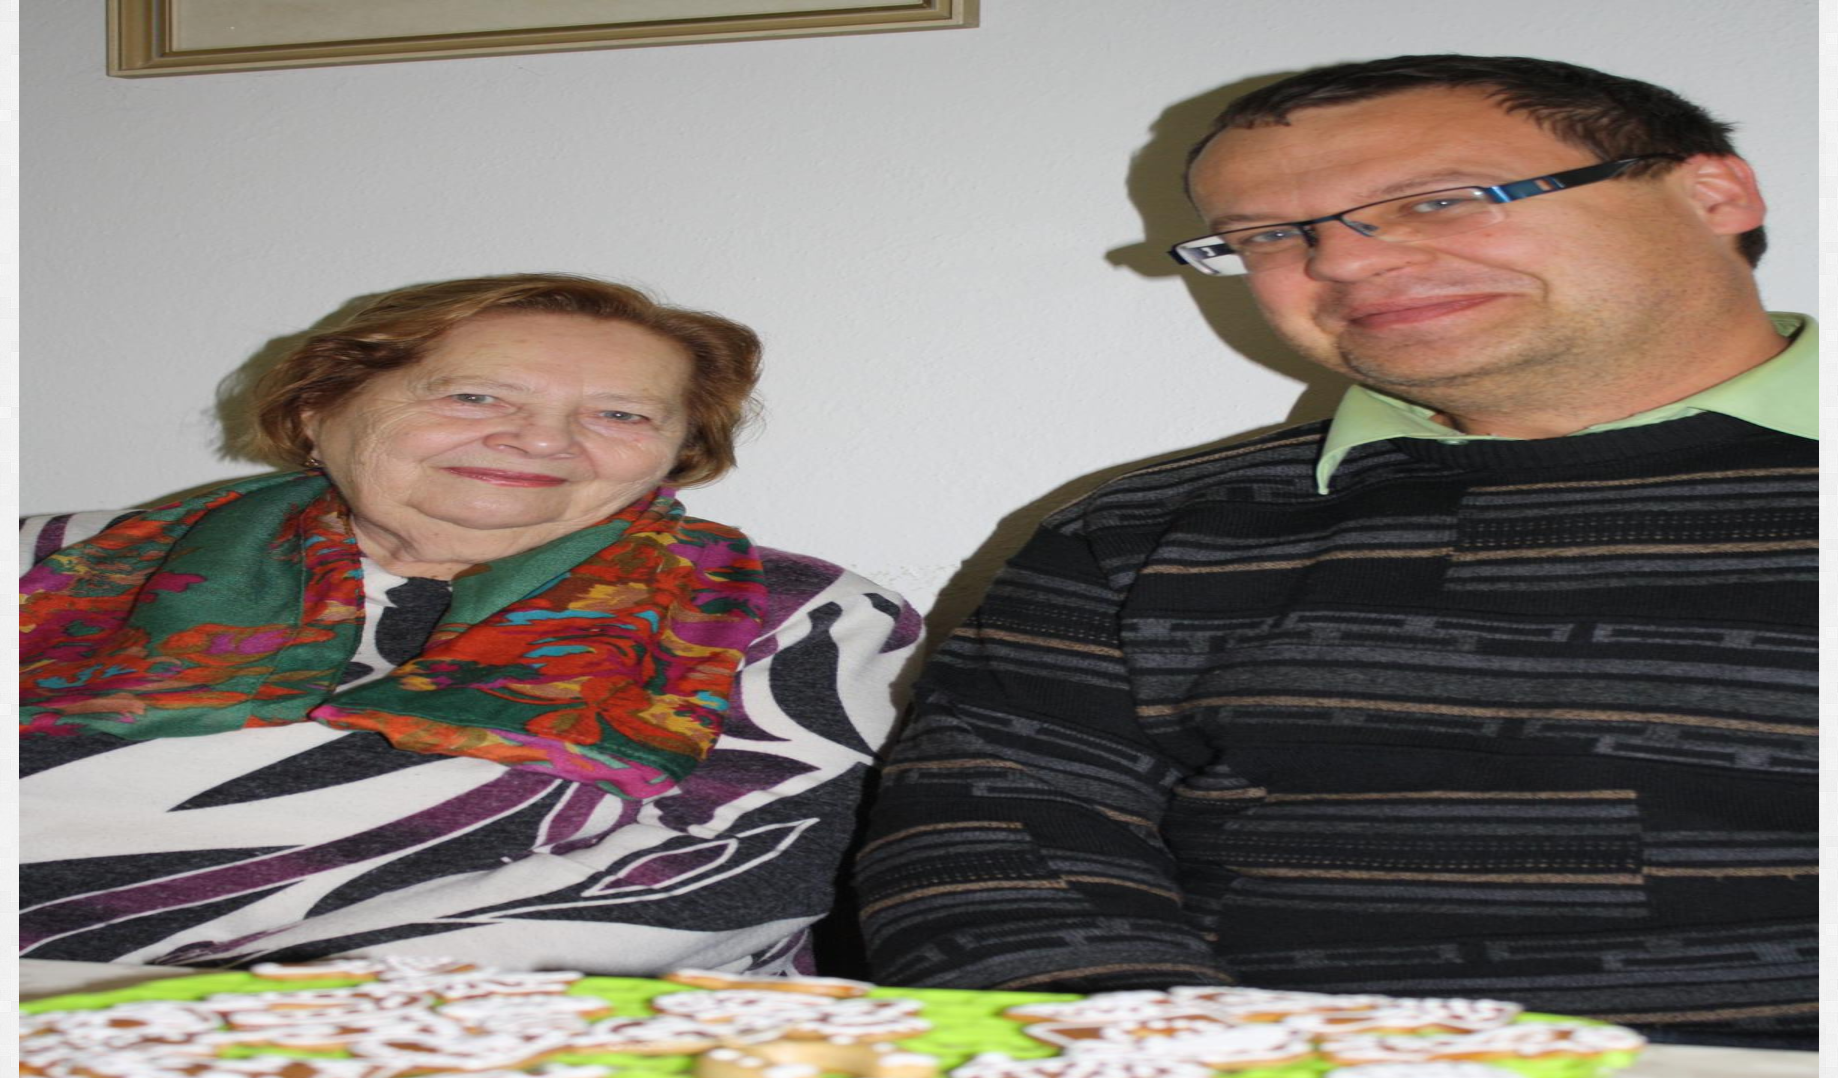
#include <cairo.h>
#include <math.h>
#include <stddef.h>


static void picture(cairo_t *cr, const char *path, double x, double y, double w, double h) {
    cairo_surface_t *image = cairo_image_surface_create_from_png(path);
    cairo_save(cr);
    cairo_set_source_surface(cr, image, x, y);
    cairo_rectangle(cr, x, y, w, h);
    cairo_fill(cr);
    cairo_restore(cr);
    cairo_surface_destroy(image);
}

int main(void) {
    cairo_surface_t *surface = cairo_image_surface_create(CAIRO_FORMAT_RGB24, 1838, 1078);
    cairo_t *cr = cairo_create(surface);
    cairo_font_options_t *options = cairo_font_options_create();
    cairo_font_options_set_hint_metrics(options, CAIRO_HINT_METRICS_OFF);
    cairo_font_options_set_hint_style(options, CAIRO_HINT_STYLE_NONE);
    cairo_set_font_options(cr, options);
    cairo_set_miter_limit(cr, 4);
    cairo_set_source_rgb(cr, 1, 1, 1);
    cairo_paint(cr);
    picture(cr, "img1.png", 0, 0, 1838, 1078);
    picture(cr, "img2.png", 19, 0, 1800, 1078);
    cairo_surface_write_to_png(surface, "page.png");
    cairo_font_options_destroy(options);
    cairo_destroy(cr);
    cairo_surface_destroy(surface);
    return 0;
}
